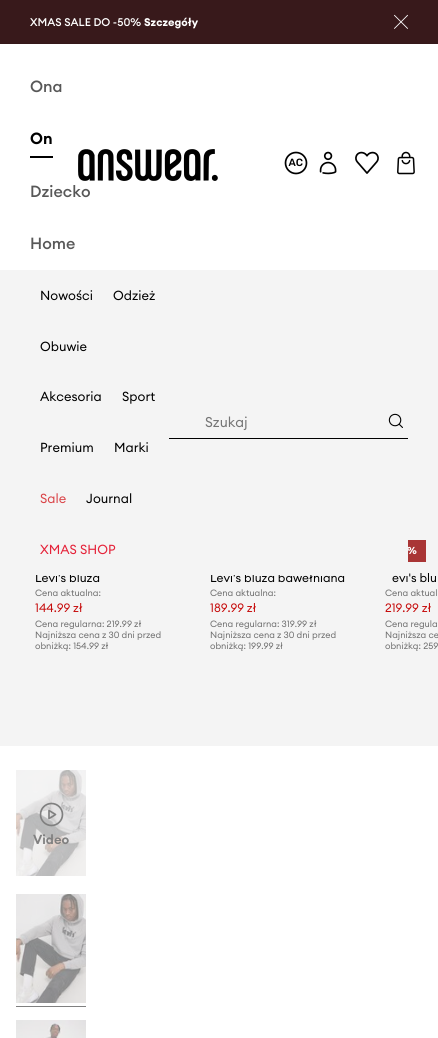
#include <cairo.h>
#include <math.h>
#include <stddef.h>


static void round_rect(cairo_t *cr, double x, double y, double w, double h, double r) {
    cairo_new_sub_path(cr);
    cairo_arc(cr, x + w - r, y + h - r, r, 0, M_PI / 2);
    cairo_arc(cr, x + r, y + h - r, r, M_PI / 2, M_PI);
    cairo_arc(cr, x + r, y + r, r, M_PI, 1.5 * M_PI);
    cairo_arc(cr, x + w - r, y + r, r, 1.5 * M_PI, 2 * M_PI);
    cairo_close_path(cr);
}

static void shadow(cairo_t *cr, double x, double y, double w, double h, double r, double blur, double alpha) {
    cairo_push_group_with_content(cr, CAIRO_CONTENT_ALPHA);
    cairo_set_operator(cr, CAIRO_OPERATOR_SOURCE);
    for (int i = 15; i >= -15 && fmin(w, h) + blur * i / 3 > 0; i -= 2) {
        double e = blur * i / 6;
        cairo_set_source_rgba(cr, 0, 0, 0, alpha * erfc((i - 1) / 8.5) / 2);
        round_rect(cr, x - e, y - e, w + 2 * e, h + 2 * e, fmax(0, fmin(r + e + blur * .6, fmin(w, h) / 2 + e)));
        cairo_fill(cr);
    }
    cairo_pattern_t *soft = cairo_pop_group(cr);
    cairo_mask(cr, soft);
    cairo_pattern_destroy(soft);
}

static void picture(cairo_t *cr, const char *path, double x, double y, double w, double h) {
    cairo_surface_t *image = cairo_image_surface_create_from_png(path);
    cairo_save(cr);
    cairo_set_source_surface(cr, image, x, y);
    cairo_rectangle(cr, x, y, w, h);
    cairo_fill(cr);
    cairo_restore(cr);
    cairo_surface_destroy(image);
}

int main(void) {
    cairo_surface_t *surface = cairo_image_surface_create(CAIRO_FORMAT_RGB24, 438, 1038);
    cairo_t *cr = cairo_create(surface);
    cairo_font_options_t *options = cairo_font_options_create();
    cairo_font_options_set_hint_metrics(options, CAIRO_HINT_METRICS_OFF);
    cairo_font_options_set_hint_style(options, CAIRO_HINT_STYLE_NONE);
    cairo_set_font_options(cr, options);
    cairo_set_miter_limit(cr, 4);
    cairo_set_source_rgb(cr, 1, 1, 1);
    cairo_paint(cr);
    cairo_set_source_rgb(cr, 0.22, 0.098, 0.106);
    cairo_rectangle(cr, 0, 0, 438, 44);
    cairo_fill(cr);
    cairo_select_font_face(cr, "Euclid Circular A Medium", CAIRO_FONT_SLANT_NORMAL, CAIRO_FONT_WEIGHT_NORMAL);
    cairo_set_font_size(cr, 11);
    cairo_set_source_rgb(cr, 1, 1, 1);
    cairo_move_to(cr, 30, 26);
    cairo_show_text(cr, "XMAS SALE DO -50%");
    cairo_select_font_face(cr, "Euclid Circular A", CAIRO_FONT_SLANT_NORMAL, CAIRO_FONT_WEIGHT_BOLD);
    cairo_move_to(cr, 144, 26);
    cairo_show_text(cr, "Szczegóły");
    picture(cr, "img1.png", 394, 14, 14, 15);
    cairo_set_source_rgb(cr, 0, 0, 0);
    shadow(cr, 0, 45, 438, 67, 0, 1.5, 0.3);
    cairo_set_source_rgb(cr, 1, 1, 1);
    cairo_rectangle(cr, 0, 44, 438, 71);
    cairo_fill(cr);
    cairo_select_font_face(cr, "Euclid Circular A Medium", CAIRO_FONT_SLANT_NORMAL, CAIRO_FONT_WEIGHT_NORMAL);
    cairo_set_font_size(cr, 16);
    cairo_set_source_rgb(cr, 0.345, 0.345, 0.345);
    cairo_move_to(cr, 30, 92);
    cairo_show_text(cr, "Ona");
    cairo_select_font_face(cr, "Euclid Circular A SemiBold", CAIRO_FONT_SLANT_NORMAL, CAIRO_FONT_WEIGHT_NORMAL);
    cairo_set_source_rgb(cr, 0, 0, 0);
    cairo_move_to(cr, 30, 144);
    cairo_show_text(cr, "On");
    cairo_rectangle(cr, 30, 156, 23, 2);
    cairo_fill(cr);
    cairo_select_font_face(cr, "Euclid Circular A Medium", CAIRO_FONT_SLANT_NORMAL, CAIRO_FONT_WEIGHT_NORMAL);
    cairo_set_source_rgb(cr, 0.345, 0.345, 0.345);
    cairo_move_to(cr, 30, 197);
    cairo_show_text(cr, "Dziecko");
    cairo_move_to(cr, 30, 249);
    cairo_show_text(cr, "Home");
    picture(cr, "img2.png", 78, 149, 140, 32);
    picture(cr, "img3.png", 284, 151, 24, 24);
    picture(cr, "img4.png", 319, 151, 18, 24);
    picture(cr, "img5.png", 355, 151, 24, 23);
    picture(cr, "img6.png", 397, 151, 18, 24);
    cairo_set_source_rgb(cr, 0.957, 0.957, 0.957);
    cairo_rectangle(cr, 0, 270, 438, 476);
    cairo_fill(cr);
    cairo_select_font_face(cr, "Euclid Circular A", CAIRO_FONT_SLANT_NORMAL, CAIRO_FONT_WEIGHT_NORMAL);
    cairo_set_font_size(cr, 12);
    cairo_set_source_rgb(cr, 0, 0, 0);
    cairo_move_to(cr, 35, 582);
    cairo_show_text(cr, "Levi's bluza");
    cairo_move_to(cr, 210, 582);
    cairo_show_text(cr, "Levi's bluza bawełniana");
    cairo_set_source_rgb(cr, 0.663, 0.208, 0.208);
    cairo_rectangle(cr, 408, 540, 18, 22);
    cairo_fill(cr);
    cairo_select_font_face(cr, "Euclid Circular A SemiBold", CAIRO_FONT_SLANT_NORMAL, CAIRO_FONT_WEIGHT_NORMAL);
    cairo_set_font_size(cr, 10);
    cairo_set_source_rgb(cr, 1, 1, 1);
    cairo_move_to(cr, 407, 554);
    cairo_show_text(cr, "%");
    cairo_select_font_face(cr, "Euclid Circular A", CAIRO_FONT_SLANT_NORMAL, CAIRO_FONT_WEIGHT_NORMAL);
    cairo_set_font_size(cr, 12);
    cairo_set_source_rgb(cr, 0, 0, 0);
    cairo_move_to(cr, 392, 582);
    cairo_show_text(cr, "evi's blu");
    cairo_set_source_rgb(cr, 0.957, 0.957, 0.957);
    cairo_rectangle(cr, 36, 547, 372, 28);
    cairo_fill(cr);
    cairo_set_font_size(cr, 13);
    cairo_set_source_rgb(cr, 0, 0, 0);
    cairo_move_to(cr, 40, 300);
    cairo_show_text(cr, "Nowości");
    cairo_move_to(cr, 113, 300);
    cairo_show_text(cr, "Odzież");
    cairo_move_to(cr, 40, 351);
    cairo_show_text(cr, "Obuwie");
    cairo_move_to(cr, 40, 401);
    cairo_show_text(cr, "Akcesoria");
    cairo_move_to(cr, 122, 401);
    cairo_show_text(cr, "Sport");
    cairo_move_to(cr, 40, 452);
    cairo_show_text(cr, "Premium");
    cairo_move_to(cr, 114, 452);
    cairo_show_text(cr, "Marki");
    cairo_set_source_rgb(cr, 0.855, 0.267, 0.282);
    cairo_move_to(cr, 40, 503);
    cairo_show_text(cr, "Sale");
    cairo_set_source_rgb(cr, 0, 0, 0);
    cairo_move_to(cr, 86, 503);
    cairo_show_text(cr, "Journal");
    cairo_set_source_rgb(cr, 0.898, 0.137, 0.227);
    cairo_move_to(cr, 40, 554);
    cairo_show_text(cr, "XMAS SHOP");
    cairo_set_source_rgb(cr, 0, 0, 0);
    cairo_rectangle(cr, 169, 438, 239, 1);
    cairo_fill(cr);
    cairo_set_font_size(cr, 14);
    cairo_set_source_rgb(cr, 0.459, 0.459, 0.459);
    cairo_move_to(cr, 205, 427);
    cairo_show_text(cr, "Szukaj");
    picture(cr, "img7.png", 388, 413, 15, 15);
    cairo_set_font_size(cr, 9);
    cairo_set_source_rgb(cr, 0.431, 0.431, 0.431);
    cairo_move_to(cr, 35, 596);
    cairo_show_text(cr, "Cena aktualna:");
    cairo_set_font_size(cr, 12);
    cairo_set_source_rgb(cr, 0.776, 0.047, 0.047);
    cairo_move_to(cr, 35, 612);
    cairo_show_text(cr, "144.99 zł");
    cairo_set_font_size(cr, 9);
    cairo_set_source_rgb(cr, 0.431, 0.431, 0.431);
    cairo_move_to(cr, 35, 627);
    cairo_show_text(cr, "Cena regularna: 219.99 zł");
    cairo_move_to(cr, 35, 638);
    cairo_show_text(cr, "Najniższa cena z 30 dni przed");
    cairo_move_to(cr, 35, 649);
    cairo_show_text(cr, "obniżką: 154.99 zł");
    cairo_move_to(cr, 210, 596);
    cairo_show_text(cr, "Cena aktualna:");
    cairo_set_font_size(cr, 12);
    cairo_set_source_rgb(cr, 0.776, 0.047, 0.047);
    cairo_move_to(cr, 210, 612);
    cairo_show_text(cr, "189.99 zł");
    cairo_set_font_size(cr, 9);
    cairo_set_source_rgb(cr, 0.431, 0.431, 0.431);
    cairo_move_to(cr, 210, 627);
    cairo_show_text(cr, "Cena regularna: 319.99 zł");
    cairo_move_to(cr, 210, 638);
    cairo_show_text(cr, "Najniższa cena z 30 dni przed");
    cairo_move_to(cr, 210, 649);
    cairo_show_text(cr, "obniżką: 199.99 zł");
    cairo_move_to(cr, 385, 596);
    cairo_show_text(cr, "Cena aktual");
    cairo_set_font_size(cr, 12);
    cairo_set_source_rgb(cr, 0.776, 0.047, 0.047);
    cairo_move_to(cr, 385, 612);
    cairo_show_text(cr, "219.99 zł");
    cairo_set_font_size(cr, 9);
    cairo_set_source_rgb(cr, 0.431, 0.431, 0.431);
    cairo_move_to(cr, 385, 627);
    cairo_show_text(cr, "Cena regula");
    cairo_move_to(cr, 385, 638);
    cairo_show_text(cr, "Najniższa ce");
    cairo_move_to(cr, 385, 649);
    cairo_show_text(cr, "obniżką: 259");
    picture(cr, "img8.png", 16, 770, 70, 106);
    cairo_arc(cr, 51.5, 814.5, 11, 0, 2 * M_PI);
    cairo_set_source_rgb(cr, 0.502, 0.502, 0.502);
    cairo_set_line_width(cr, 1.7);
    cairo_stroke(cr);
    cairo_new_path(cr);
    cairo_move_to(cr, 49, 818.5);
    cairo_line_to(cr, 49, 810.5);
    cairo_line_to(cr, 55.5, 814.5);
    cairo_line_to(cr, 52.5, 816.5);
    cairo_close_path(cr);
    cairo_set_line_cap(cr, CAIRO_LINE_CAP_ROUND);
    cairo_set_line_join(cr, CAIRO_LINE_JOIN_ROUND);
    cairo_stroke(cr);
    cairo_select_font_face(cr, "Euclid Circular A SemiBold", CAIRO_FONT_SLANT_NORMAL, CAIRO_FONT_WEIGHT_NORMAL);
    cairo_set_font_size(cr, 13);
    cairo_move_to(cr, 33, 844);
    cairo_show_text(cr, "Video");
    cairo_rectangle(cr, 16, 1006, 70, 1);
    cairo_fill(cr);
    cairo_set_source_rgb(cr, 0.984, 0.984, 0.984);
    cairo_rectangle(cr, 16, 894, 70, 109);
    cairo_fill(cr);
    picture(cr, "img9.png", 16, 894, 70, 109);
    cairo_rectangle(cr, 16, 1020, 70, 18);
    cairo_fill(cr);
    picture(cr, "img10.png", 16, 1020, 70, 18);
    cairo_surface_write_to_png(surface, "page.png");
    cairo_font_options_destroy(options);
    cairo_destroy(cr);
    cairo_surface_destroy(surface);
    return 0;
}
